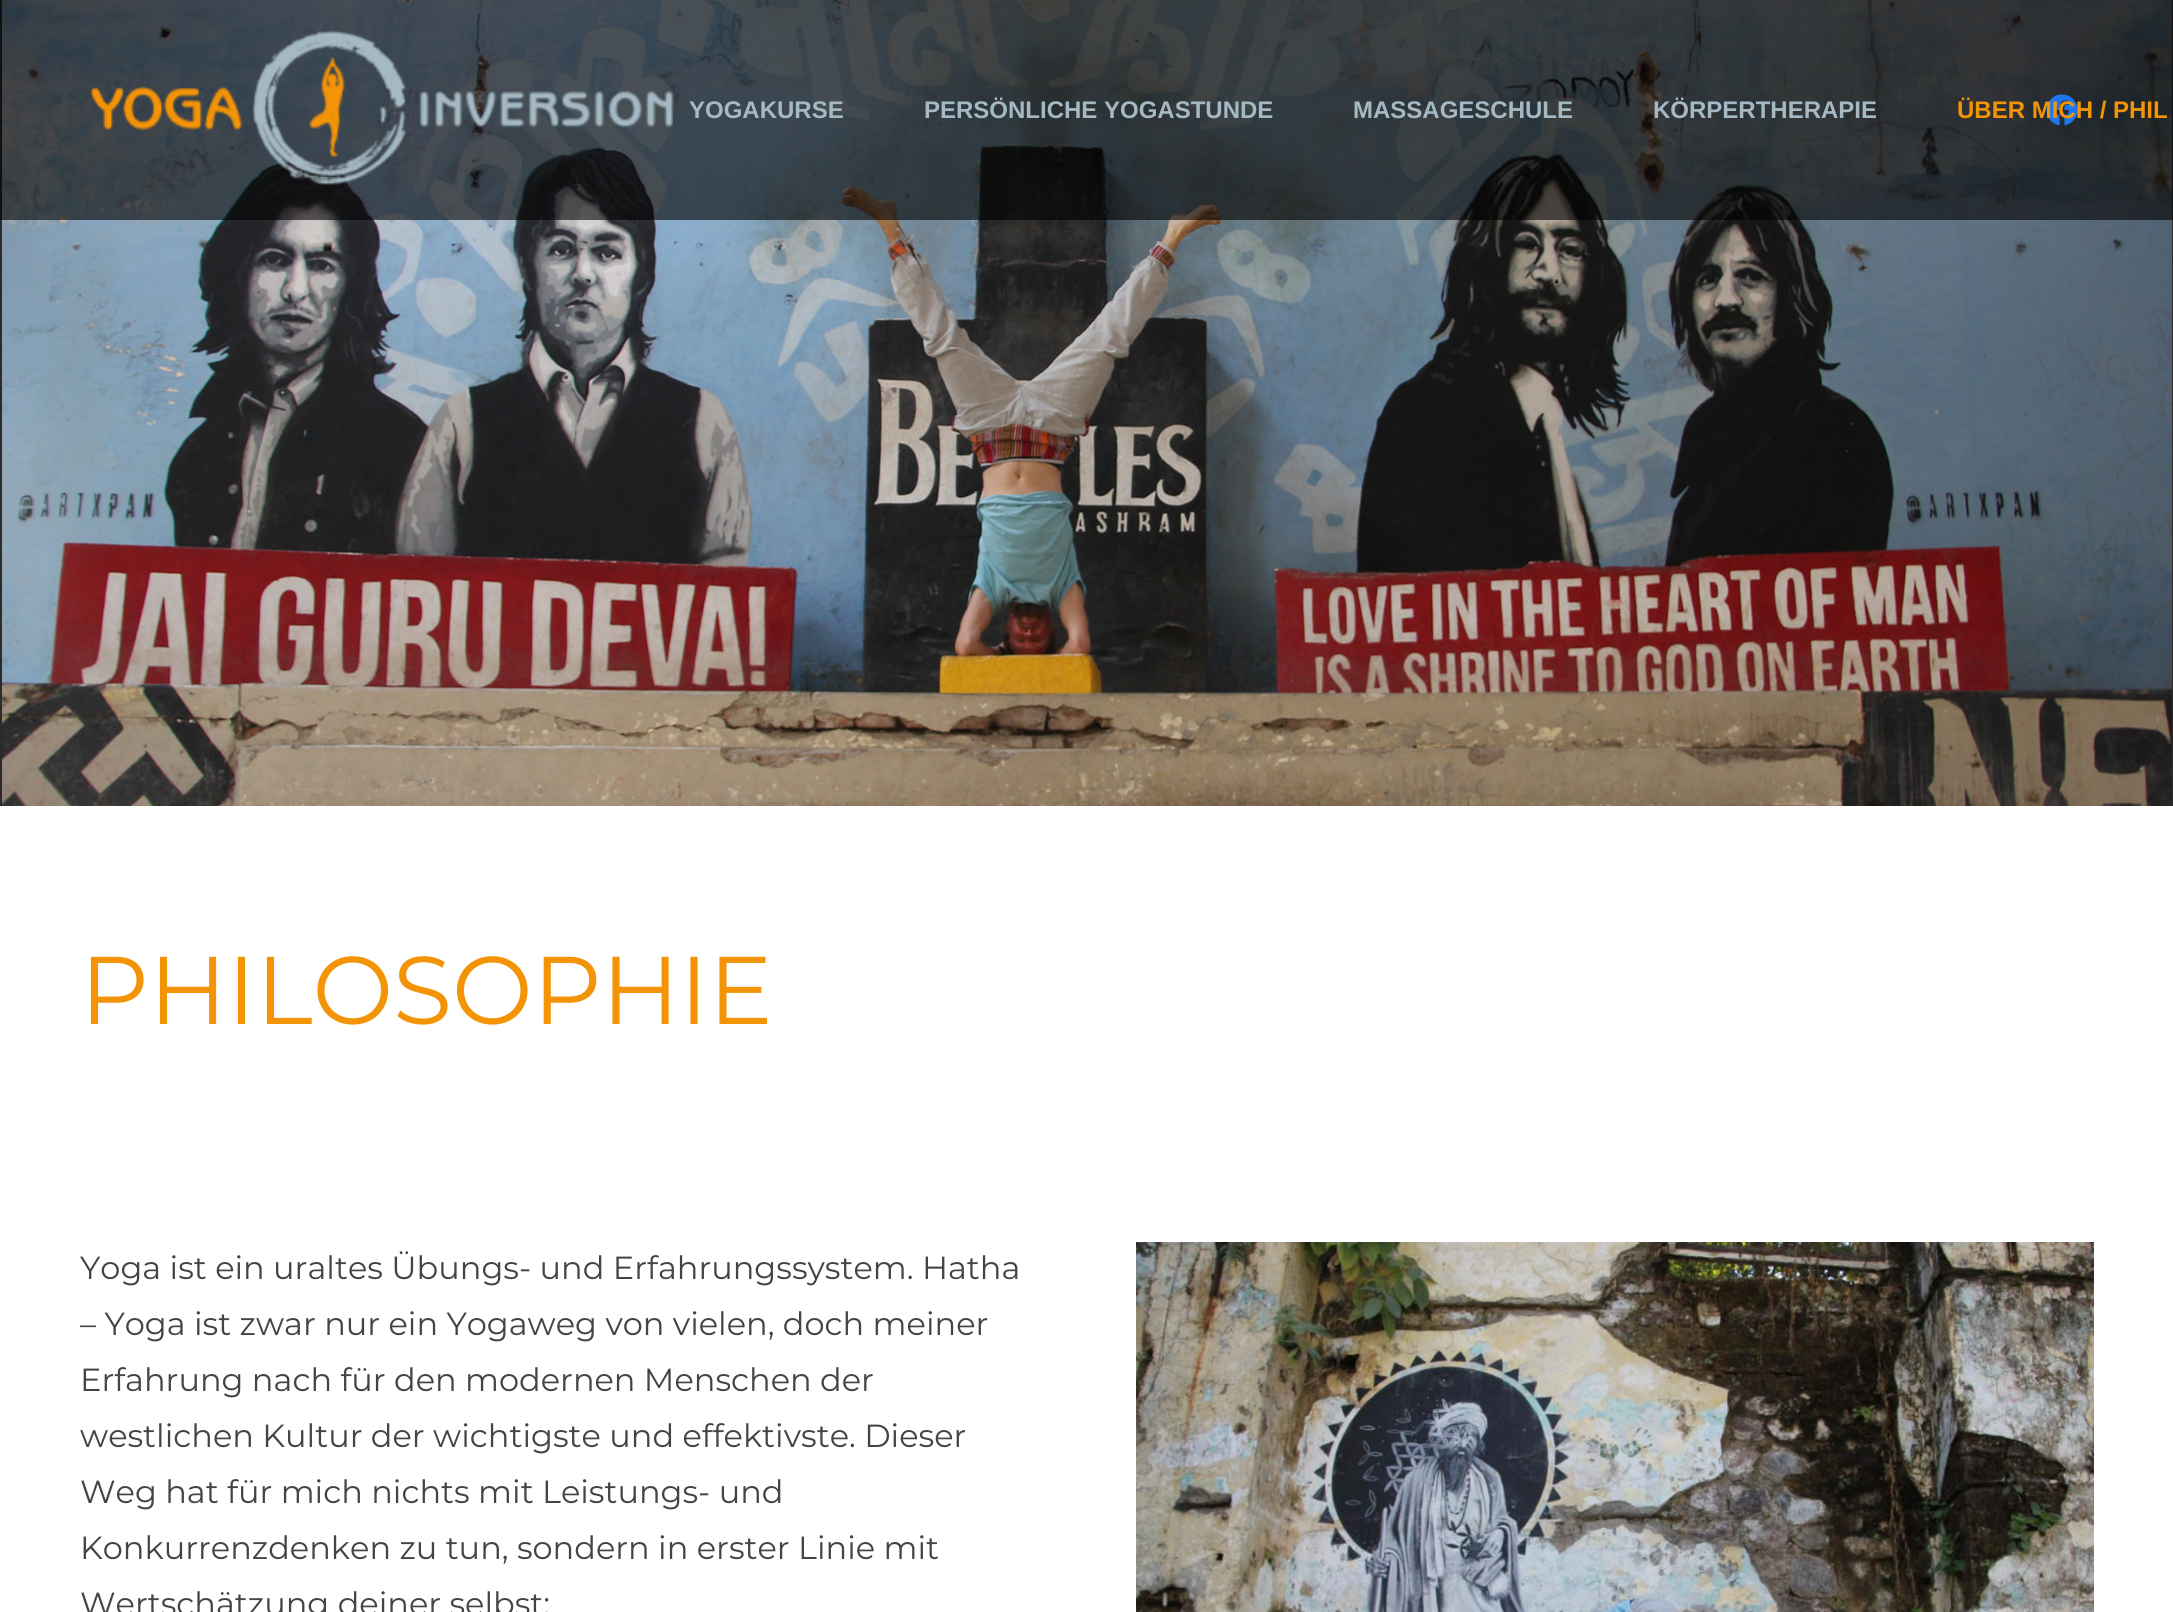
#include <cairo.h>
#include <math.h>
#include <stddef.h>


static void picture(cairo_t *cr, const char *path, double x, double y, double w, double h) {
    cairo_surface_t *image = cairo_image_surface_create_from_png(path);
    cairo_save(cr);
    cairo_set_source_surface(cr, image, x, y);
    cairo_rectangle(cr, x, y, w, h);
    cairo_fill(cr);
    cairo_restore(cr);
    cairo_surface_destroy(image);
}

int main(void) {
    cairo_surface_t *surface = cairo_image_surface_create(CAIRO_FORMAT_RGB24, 2173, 1612);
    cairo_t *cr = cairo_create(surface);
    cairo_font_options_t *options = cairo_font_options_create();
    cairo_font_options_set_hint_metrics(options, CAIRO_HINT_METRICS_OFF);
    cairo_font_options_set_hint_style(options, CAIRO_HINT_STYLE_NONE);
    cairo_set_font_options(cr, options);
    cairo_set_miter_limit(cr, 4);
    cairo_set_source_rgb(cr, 0.169, 0.169, 0.169);
    cairo_paint(cr);
    picture(cr, "img3.png", 2, 0, 2170, 806);
    cairo_set_source_rgba(cr, 0, 0, 0, 0.6);
    cairo_rectangle(cr, 0, 0, 2173, 220);
    cairo_fill(cr);
    picture(cr, "img1.png", 90, 30, 583, 156);
    picture(cr, "img2.png", 2046, 94, 32, 32);
    cairo_select_font_face(cr, "Liberation Sans", CAIRO_FONT_SLANT_NORMAL, CAIRO_FONT_WEIGHT_BOLD);
    cairo_set_font_size(cr, 24);
    cairo_set_source_rgb(cr, 0.647, 0.725, 0.769);
    cairo_move_to(cr, 689, 118);
    cairo_show_text(cr, "YOGAKURSE");
    cairo_move_to(cr, 924, 118);
    cairo_show_text(cr, "PERSÖNLICHE YOGASTUNDE");
    cairo_move_to(cr, 1353, 118);
    cairo_show_text(cr, "MASSAGESCHULE");
    cairo_move_to(cr, 1653, 118);
    cairo_show_text(cr, "KÖRPERTHERAPIE");
    cairo_set_source_rgb(cr, 0.953, 0.576, 0.027);
    cairo_move_to(cr, 1957, 118);
    cairo_show_text(cr, "ÜBER MICH / PHIL");
    cairo_set_source_rgb(cr, 1, 1, 1);
    cairo_rectangle(cr, 0, 806, 2173, 806);
    cairo_fill(cr);
    cairo_select_font_face(cr, "Montserrat", CAIRO_FONT_SLANT_NORMAL, CAIRO_FONT_WEIGHT_NORMAL);
    cairo_set_font_size(cr, 96);
    cairo_set_source_rgb(cr, 0.953, 0.576, 0.027);
    cairo_move_to(cr, 80, 1024);
    cairo_show_text(cr, "PHILOSOPHIE");
    cairo_set_font_size(cr, 32);
    cairo_set_source_rgb(cr, 0.267, 0.267, 0.267);
    cairo_move_to(cr, 80, 1279);
    cairo_show_text(cr, "Yoga ist ein uraltes Übungs- und Erfahrungssystem. Hatha");
    cairo_move_to(cr, 80, 1335);
    cairo_show_text(cr, "– Yoga ist zwar nur ein Yogaweg von vielen, doch meiner");
    cairo_move_to(cr, 80, 1391);
    cairo_show_text(cr, "Erfahrung nach für den modernen Menschen der");
    cairo_move_to(cr, 80, 1447);
    cairo_show_text(cr, "westlichen Kultur der wichtigste und effektivste. Dieser");
    cairo_move_to(cr, 80, 1503);
    cairo_show_text(cr, "Weg hat für mich nichts mit Leistungs- und");
    cairo_move_to(cr, 80, 1559);
    cairo_show_text(cr, "Konkurrenzdenken zu tun, sondern in erster Linie mit");
    cairo_move_to(cr, 80, 1615);
    cairo_show_text(cr, "Wertschätzung deiner selbst:");
    picture(cr, "img4.png", 1136, 1242, 958, 370);
    cairo_surface_write_to_png(surface, "page.png");
    cairo_font_options_destroy(options);
    cairo_destroy(cr);
    cairo_surface_destroy(surface);
    return 0;
}
